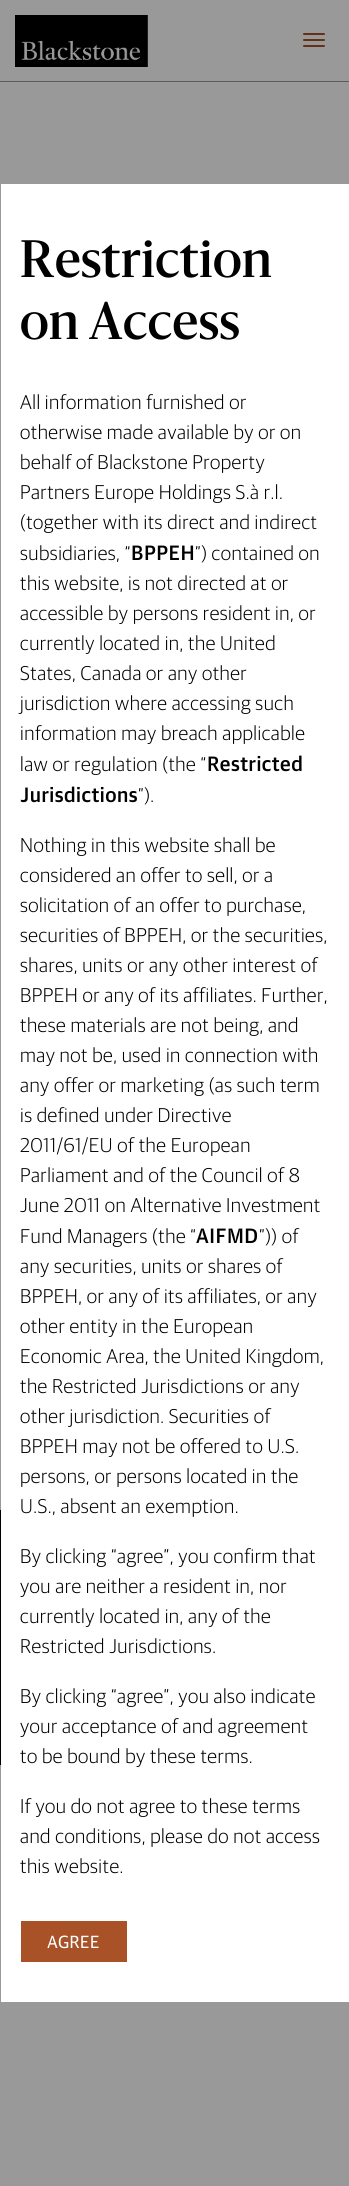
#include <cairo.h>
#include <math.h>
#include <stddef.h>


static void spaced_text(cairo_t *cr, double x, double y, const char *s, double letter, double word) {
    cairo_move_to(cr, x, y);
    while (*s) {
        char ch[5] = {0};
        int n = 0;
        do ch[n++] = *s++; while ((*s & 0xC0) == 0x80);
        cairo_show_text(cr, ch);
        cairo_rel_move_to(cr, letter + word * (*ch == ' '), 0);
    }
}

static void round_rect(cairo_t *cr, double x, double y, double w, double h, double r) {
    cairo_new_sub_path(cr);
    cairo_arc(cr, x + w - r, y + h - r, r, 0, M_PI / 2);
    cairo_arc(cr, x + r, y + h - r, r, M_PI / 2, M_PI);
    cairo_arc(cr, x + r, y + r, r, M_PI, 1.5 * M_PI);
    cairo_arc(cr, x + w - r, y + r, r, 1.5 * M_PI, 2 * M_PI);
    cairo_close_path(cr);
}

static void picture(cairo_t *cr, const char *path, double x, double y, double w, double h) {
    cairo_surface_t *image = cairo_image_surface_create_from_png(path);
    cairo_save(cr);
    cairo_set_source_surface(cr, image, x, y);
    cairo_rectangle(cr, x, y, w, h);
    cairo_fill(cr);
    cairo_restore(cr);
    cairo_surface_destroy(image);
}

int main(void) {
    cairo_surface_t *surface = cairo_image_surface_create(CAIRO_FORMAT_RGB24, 349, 2186);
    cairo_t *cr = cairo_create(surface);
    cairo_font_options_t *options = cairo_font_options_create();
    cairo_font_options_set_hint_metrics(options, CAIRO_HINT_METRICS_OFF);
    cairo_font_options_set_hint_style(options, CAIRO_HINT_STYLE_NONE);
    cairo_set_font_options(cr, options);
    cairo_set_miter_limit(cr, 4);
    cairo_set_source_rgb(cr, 0.6, 0.6, 0.6);
    cairo_paint(cr);
    picture(cr, "img1.png", 15, 15, 133, 52);
    cairo_set_source_rgb(cr, 0.396, 0.192, 0.094);
    round_rect(cr, 303, 39, 22, 2, 1);
    cairo_fill(cr);
    round_rect(cr, 303, 33, 22, 2, 1);
    cairo_fill(cr);
    round_rect(cr, 303, 45, 22, 2, 1);
    cairo_fill(cr);
    cairo_set_source_rgb(cr, 0.361, 0.361, 0.361);
    cairo_rectangle(cr, 0, 81, 349, 1);
    cairo_fill(cr);
    cairo_set_source_rgb(cr, 0, 0, 0);
    cairo_rectangle(cr, 0, 1510, 1, 255);
    cairo_fill(cr);
    cairo_set_source_rgb(cr, 1, 1, 1);
    cairo_rectangle(cr, 1, 184, 348, 1818);
    cairo_fill(cr);
    cairo_select_font_face(cr, "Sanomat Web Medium", CAIRO_FONT_SLANT_NORMAL, CAIRO_FONT_WEIGHT_NORMAL);
    cairo_set_font_size(cr, 49);
    cairo_set_source_rgb(cr, 0, 0, 0);
    spaced_text(cr, 20, 277, "Restriction", 0.5, 0);
    spaced_text(cr, 20, 339, "on Access", 0.5, 0);
    cairo_select_font_face(cr, "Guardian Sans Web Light", CAIRO_FONT_SLANT_NORMAL, CAIRO_FONT_WEIGHT_NORMAL);
    cairo_set_font_size(cr, 20);
    spaced_text(cr, 20, 409, "All information furnished or", 0.5, 0);
    spaced_text(cr, 20, 439, "otherwise made available by or on", 0.5, 0);
    spaced_text(cr, 20, 469, "behalf of Blackstone Property", 0.5, 0);
    spaced_text(cr, 20, 499, "Partners Europe Holdings S.à r.l.", 0.5, 0);
    spaced_text(cr, 20, 529, "(together with its direct and indirect", 0.5, 0);
    spaced_text(cr, 20, 560, "subsidiaries, “", 0.5, 0);
    cairo_select_font_face(cr, "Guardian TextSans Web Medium", CAIRO_FONT_SLANT_NORMAL, CAIRO_FONT_WEIGHT_NORMAL);
    spaced_text(cr, 131, 560, "BPPEH", 0.5, 0);
    cairo_select_font_face(cr, "Guardian Sans Web Light", CAIRO_FONT_SLANT_NORMAL, CAIRO_FONT_WEIGHT_NORMAL);
    spaced_text(cr, 195, 560, "”) contained on", 0.5, 0);
    spaced_text(cr, 20, 590, "this website, is not directed at or", 0.5, 0);
    spaced_text(cr, 20, 620, "accessible by persons resident in, or", 0.5, 0);
    spaced_text(cr, 20, 650, "currently located in, the United", 0.5, 0);
    spaced_text(cr, 20, 680, "States, Canada or any other", 0.5, 0);
    spaced_text(cr, 20, 710, "jurisdiction where accessing such", 0.5, 0);
    spaced_text(cr, 20, 740, "information may breach applicable", 0.5, 0);
    spaced_text(cr, 20, 771, "law or regulation (the “", 0.5, 0);
    cairo_select_font_face(cr, "Guardian TextSans Web Medium", CAIRO_FONT_SLANT_NORMAL, CAIRO_FONT_WEIGHT_NORMAL);
    spaced_text(cr, 207, 771, "Restricted", 0.5, 0);
    spaced_text(cr, 20, 802, "Jurisdictions", 0.5, 0);
    cairo_select_font_face(cr, "Guardian Sans Web Light", CAIRO_FONT_SLANT_NORMAL, CAIRO_FONT_WEIGHT_NORMAL);
    spaced_text(cr, 138, 802, "”).", 0.5, 0);
    spaced_text(cr, 20, 852, "Nothing in this website shall be", 0.5, 0);
    spaced_text(cr, 20, 882, "considered an offer to sell, or a", 0.5, 0);
    spaced_text(cr, 20, 912, "solicitation of an offer to purchase,", 0.5, 0);
    spaced_text(cr, 20, 942, "securities of BPPEH, or the securities,", 0.5, 0);
    spaced_text(cr, 20, 972, "shares, units or any other interest of", 0.5, 0);
    spaced_text(cr, 20, 1002, "BPPEH or any of its affiliates. Further,", 0.5, 0);
    spaced_text(cr, 20, 1032, "these materials are not being, and", 0.5, 0);
    spaced_text(cr, 20, 1062, "may not be, used in connection with", 0.5, 0);
    spaced_text(cr, 20, 1092, "any offer or marketing (as such term", 0.5, 0);
    spaced_text(cr, 20, 1122, "is defined under Directive", 0.5, 0);
    spaced_text(cr, 20, 1152, "2011/61/EU of the European", 0.5, 0);
    spaced_text(cr, 20, 1182, "Parliament and of the Council of 8", 0.5, 0);
    spaced_text(cr, 20, 1212, "June 2011 on Alternative Investment", 0.5, 0);
    spaced_text(cr, 20, 1243, "Fund Managers (the “", 0.5, 0);
    cairo_select_font_face(cr, "Guardian TextSans Web Medium", CAIRO_FONT_SLANT_NORMAL, CAIRO_FONT_WEIGHT_NORMAL);
    spaced_text(cr, 196, 1243, "AIFMD", 0.5, 0);
    cairo_select_font_face(cr, "Guardian Sans Web Light", CAIRO_FONT_SLANT_NORMAL, CAIRO_FONT_WEIGHT_NORMAL);
    spaced_text(cr, 259, 1243, "”)) of", 0.5, 0);
    spaced_text(cr, 20, 1273, "any securities, units or shares of", 0.5, 0);
    spaced_text(cr, 20, 1303, "BPPEH, or any of its affiliates, or any", 0.5, 0);
    spaced_text(cr, 20, 1333, "other entity in the European", 0.5, 0);
    spaced_text(cr, 20, 1363, "Economic Area, the United Kingdom,", 0.5, 0);
    spaced_text(cr, 20, 1393, "the Restricted Jurisdictions or any", 0.5, 0);
    spaced_text(cr, 20, 1423, "other jurisdiction. Securities of", 0.5, 0);
    spaced_text(cr, 20, 1453, "BPPEH may not be offered to U.S.", 0.5, 0);
    spaced_text(cr, 20, 1483, "persons, or persons located in the", 0.5, 0);
    spaced_text(cr, 20, 1513, "U.S., absent an exemption.", 0.5, 0);
    spaced_text(cr, 20, 1563, "By clicking “agree”, you confirm that", 0.5, 0);
    spaced_text(cr, 20, 1593, "you are neither a resident in, nor", 0.5, 0);
    spaced_text(cr, 20, 1623, "currently located in, any of the", 0.5, 0);
    spaced_text(cr, 20, 1653, "Restricted Jurisdictions.", 0.5, 0);
    spaced_text(cr, 20, 1703, "By clicking “agree”, you also indicate", 0.5, 0);
    spaced_text(cr, 20, 1733, "your acceptance of and agreement", 0.5, 0);
    spaced_text(cr, 20, 1763, "to be bound by these terms.", 0.5, 0);
    spaced_text(cr, 20, 1813, "If you do not agree to these terms", 0.5, 0);
    spaced_text(cr, 20, 1843, "and conditions, please do not access", 0.5, 0);
    spaced_text(cr, 20, 1873, "this website.", 0.5, 0);
    cairo_set_source_rgb(cr, 0.663, 0.322, 0.157);
    cairo_rectangle(cr, 21, 1921, 106, 41);
    cairo_fill(cr);
    cairo_select_font_face(cr, "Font", CAIRO_FONT_SLANT_NORMAL, CAIRO_FONT_WEIGHT_NORMAL);
    cairo_set_font_size(cr, 17);
    cairo_set_source_rgb(cr, 1, 1, 1);
    cairo_move_to(cr, 47, 1948);
    cairo_show_text(cr, "AGREE");
    cairo_surface_write_to_png(surface, "page.png");
    cairo_font_options_destroy(options);
    cairo_destroy(cr);
    cairo_surface_destroy(surface);
    return 0;
}
